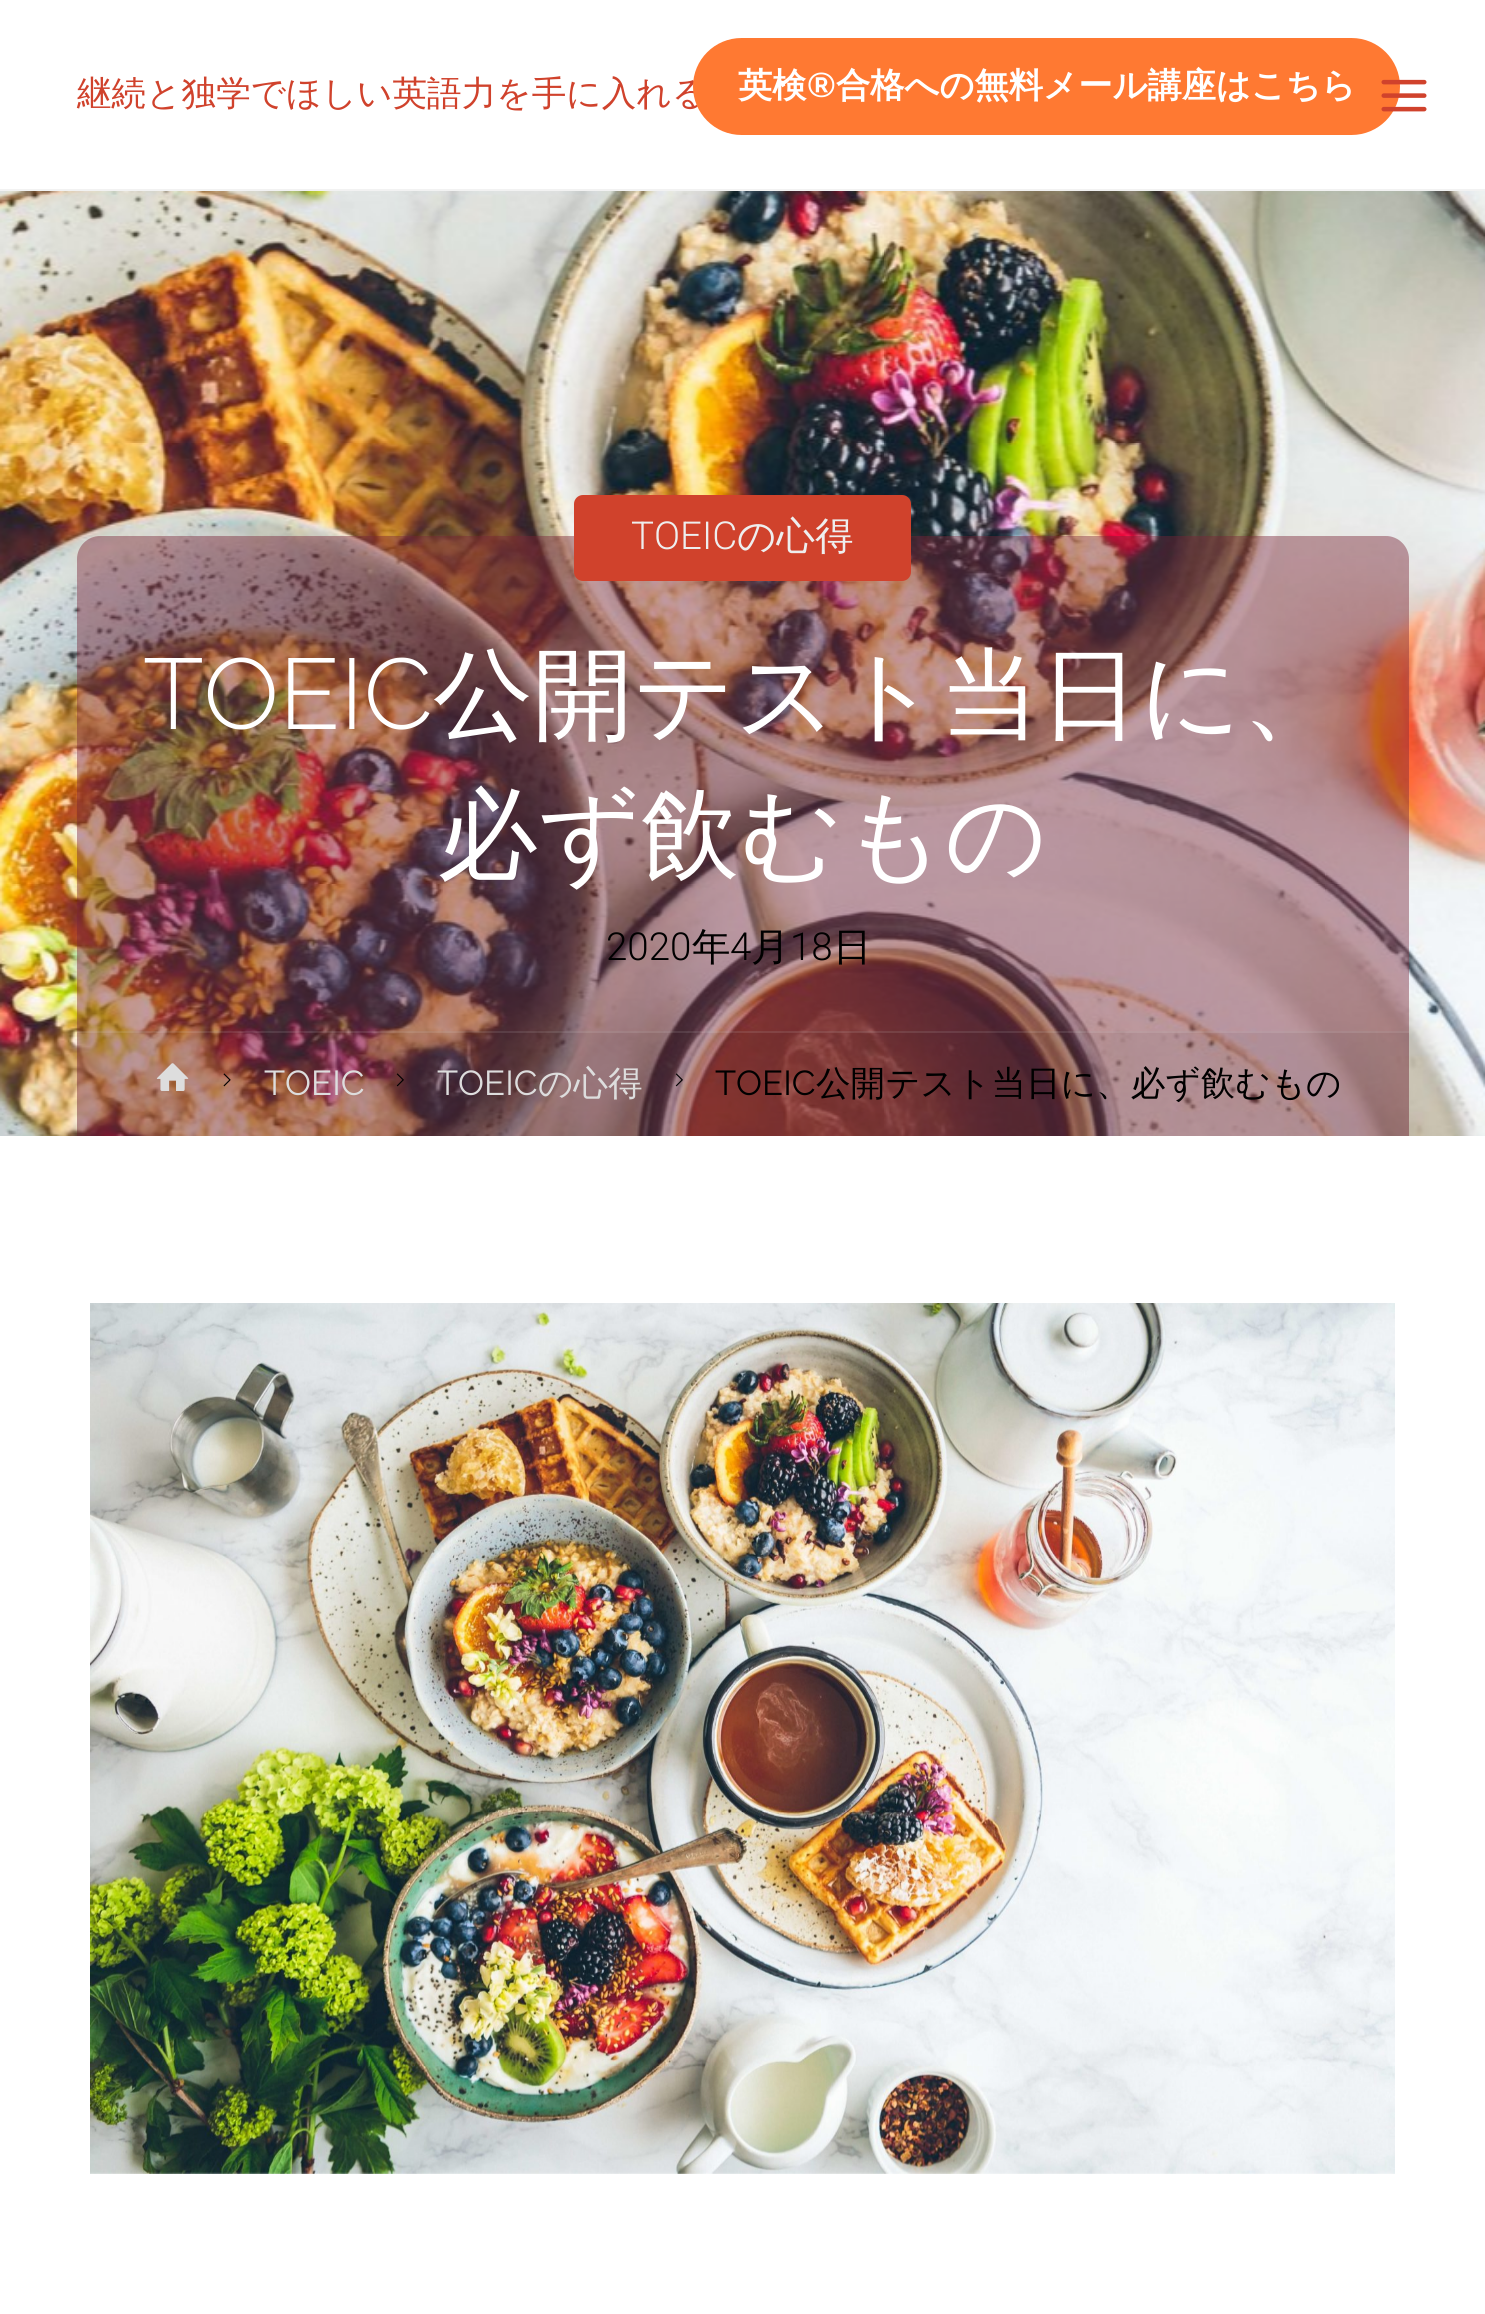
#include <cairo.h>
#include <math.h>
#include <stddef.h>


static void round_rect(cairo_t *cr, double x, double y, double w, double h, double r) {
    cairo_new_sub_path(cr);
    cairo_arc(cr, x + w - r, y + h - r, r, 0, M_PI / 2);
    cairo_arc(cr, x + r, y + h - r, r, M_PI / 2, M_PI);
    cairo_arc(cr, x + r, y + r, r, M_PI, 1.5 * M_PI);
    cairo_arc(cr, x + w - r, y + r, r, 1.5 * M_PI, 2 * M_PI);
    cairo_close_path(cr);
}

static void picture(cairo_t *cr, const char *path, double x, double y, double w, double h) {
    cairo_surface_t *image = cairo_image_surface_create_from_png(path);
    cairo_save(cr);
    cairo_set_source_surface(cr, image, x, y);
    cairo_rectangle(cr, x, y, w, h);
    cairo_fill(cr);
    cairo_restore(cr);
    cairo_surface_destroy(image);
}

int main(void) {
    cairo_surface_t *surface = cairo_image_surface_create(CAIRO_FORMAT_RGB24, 1485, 2314);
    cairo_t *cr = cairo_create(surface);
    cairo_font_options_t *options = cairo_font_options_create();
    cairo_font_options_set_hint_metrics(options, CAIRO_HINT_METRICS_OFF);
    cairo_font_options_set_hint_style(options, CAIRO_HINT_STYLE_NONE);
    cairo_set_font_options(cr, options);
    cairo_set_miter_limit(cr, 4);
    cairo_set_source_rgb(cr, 1, 1, 1);
    cairo_paint(cr);
    cairo_set_source_rgb(cr, 0.949, 0.949, 0.949);
    cairo_rectangle(cr, 0, 189, 1485, 2);
    cairo_fill(cr);
    cairo_select_font_face(cr, "WenQuanYi Zen Hei Medium", CAIRO_FONT_SLANT_NORMAL, CAIRO_FONT_WEIGHT_NORMAL);
    cairo_set_font_size(cr, 34.6);
    cairo_set_source_rgb(cr, 0.816, 0.259, 0.173);
    cairo_move_to(cr, 77, 105);
    cairo_show_text(cr, "継続と独学でほしい英語力を手に入れる");
    cairo_set_source_rgb(cr, 1, 0.475, 0.196);
    round_rect(cr, 693, 38, 707, 97, 48.5);
    cairo_fill(cr);
    cairo_select_font_face(cr, "WenQuanYi Zen Hei", CAIRO_FONT_SLANT_NORMAL, CAIRO_FONT_WEIGHT_BOLD);
    cairo_set_font_size(cr, 34.25);
    cairo_set_source_rgb(cr, 1, 1, 1);
    cairo_move_to(cr, 738, 97);
    cairo_show_text(cr, "英検");
    cairo_select_font_face(cr, "Raleway", CAIRO_FONT_SLANT_NORMAL, CAIRO_FONT_WEIGHT_BOLD);
    cairo_move_to(cr, 807, 97);
    cairo_show_text(cr, "®");
    cairo_select_font_face(cr, "WenQuanYi Zen Hei", CAIRO_FONT_SLANT_NORMAL, CAIRO_FONT_WEIGHT_BOLD);
    cairo_move_to(cr, 836, 97);
    cairo_show_text(cr, "合格への無料メール講座はこちら");
    picture(cr, "img1.png", 1381, 79, 46, 33);
    picture(cr, "img2.png", 0, 191, 1485, 945);
    cairo_set_source_rgba(cr, 0.478, 0.145, 0.22, 0.44);
    cairo_new_path(cr);
    cairo_move_to(cr, 100, 536);
    cairo_line_to(cr, 1386, 536);
    cairo_curve_to(cr, 1398.5, 536, 1409, 546.5, 1409, 559);
    cairo_line_to(cr, 1409, 1136);
    cairo_line_to(cr, 77, 1136);
    cairo_line_to(cr, 77, 559);
    cairo_curve_to(cr, 77, 546.5, 87.5, 536, 100, 536);
    cairo_close_path(cr);
    cairo_fill(cr);
    cairo_set_source_rgb(cr, 0.816, 0.259, 0.173);
    round_rect(cr, 574, 495, 337, 86, 9);
    cairo_fill(cr);
    cairo_select_font_face(cr, "Roboto Light", CAIRO_FONT_SLANT_NORMAL, CAIRO_FONT_WEIGHT_NORMAL);
    cairo_set_font_size(cr, 38.5);
    cairo_set_source_rgb(cr, 0.933, 0.933, 0.933);
    cairo_move_to(cr, 631, 549);
    cairo_show_text(cr, "TOEIC");
    cairo_select_font_face(cr, "WenQuanYi Zen Hei Medium", CAIRO_FONT_SLANT_NORMAL, CAIRO_FONT_WEIGHT_NORMAL);
    cairo_move_to(cr, 737, 549);
    cairo_show_text(cr, "の心得");
    cairo_select_font_face(cr, "Roboto Light", CAIRO_FONT_SLANT_NORMAL, CAIRO_FONT_WEIGHT_NORMAL);
    cairo_set_source_rgb(cr, 0, 0, 0);
    cairo_move_to(cr, 606, 960);
    cairo_show_text(cr, "2020");
    cairo_select_font_face(cr, "WenQuanYi Zen Hei Medium", CAIRO_FONT_SLANT_NORMAL, CAIRO_FONT_WEIGHT_NORMAL);
    cairo_move_to(cr, 692, 960);
    cairo_show_text(cr, "年");
    cairo_select_font_face(cr, "Roboto Light", CAIRO_FONT_SLANT_NORMAL, CAIRO_FONT_WEIGHT_NORMAL);
    cairo_move_to(cr, 730, 960);
    cairo_show_text(cr, "4");
    cairo_select_font_face(cr, "WenQuanYi Zen Hei Medium", CAIRO_FONT_SLANT_NORMAL, CAIRO_FONT_WEIGHT_NORMAL);
    cairo_move_to(cr, 751, 960);
    cairo_show_text(cr, "月");
    cairo_select_font_face(cr, "Roboto Light", CAIRO_FONT_SLANT_NORMAL, CAIRO_FONT_WEIGHT_NORMAL);
    cairo_move_to(cr, 790, 960);
    cairo_show_text(cr, "18");
    cairo_select_font_face(cr, "WenQuanYi Zen Hei Medium", CAIRO_FONT_SLANT_NORMAL, CAIRO_FONT_WEIGHT_NORMAL);
    cairo_move_to(cr, 833, 960);
    cairo_show_text(cr, "日");
    cairo_select_font_face(cr, "Raleway Light", CAIRO_FONT_SLANT_NORMAL, CAIRO_FONT_WEIGHT_NORMAL);
    cairo_set_font_size(cr, 100);
    cairo_set_source_rgb(cr, 1, 1, 1);
    cairo_move_to(cr, 143, 729);
    cairo_show_text(cr, "TOEIC");
    cairo_select_font_face(cr, "WenQuanYi Zen Hei Medium", CAIRO_FONT_SLANT_NORMAL, CAIRO_FONT_WEIGHT_NORMAL);
    cairo_move_to(cr, 433, 729);
    cairo_show_text(cr, "公開テスト当日に、");
    cairo_move_to(cr, 438, 869);
    cairo_show_text(cr, "必ず飲むもの");
    cairo_set_source_rgba(cr, 0, 0, 0, 0.05);
    cairo_rectangle(cr, 77, 1031, 1332, 105);
    cairo_fill(cr);
    cairo_set_source_rgba(cr, 1, 1, 1, 0.1);
    cairo_rectangle(cr, 77, 1031, 1332, 2);
    cairo_fill(cr);
    picture(cr, "img3.png", 156, 1063, 33, 28);
    picture(cr, "img4.png", 223, 1073, 8, 14);
    cairo_select_font_face(cr, "Raleway", CAIRO_FONT_SLANT_NORMAL, CAIRO_FONT_WEIGHT_NORMAL);
    cairo_set_font_size(cr, 34.6);
    cairo_set_source_rgb(cr, 0.867, 0.867, 0.867);
    cairo_move_to(cr, 264, 1095);
    cairo_show_text(cr, "TOEIC");
    picture(cr, "img5.png", 396, 1073, 8, 14);
    cairo_move_to(cr, 437, 1095);
    cairo_show_text(cr, "TOEIC");
    cairo_select_font_face(cr, "WenQuanYi Zen Hei Medium", CAIRO_FONT_SLANT_NORMAL, CAIRO_FONT_WEIGHT_NORMAL);
    cairo_move_to(cr, 538, 1095);
    cairo_show_text(cr, "の心得");
    picture(cr, "img6.png", 675, 1073, 8, 14);
    cairo_select_font_face(cr, "Raleway", CAIRO_FONT_SLANT_NORMAL, CAIRO_FONT_WEIGHT_NORMAL);
    cairo_set_source_rgb(cr, 0, 0, 0);
    cairo_move_to(cr, 715, 1095);
    cairo_show_text(cr, "TOEIC");
    cairo_select_font_face(cr, "WenQuanYi Zen Hei Medium", CAIRO_FONT_SLANT_NORMAL, CAIRO_FONT_WEIGHT_NORMAL);
    cairo_move_to(cr, 816, 1095);
    cairo_show_text(cr, "公開テスト当日に、必ず飲むもの");
    picture(cr, "img7.png", 90, 1303, 1305, 871);
    cairo_surface_write_to_png(surface, "page.png");
    cairo_font_options_destroy(options);
    cairo_destroy(cr);
    cairo_surface_destroy(surface);
    return 0;
}
